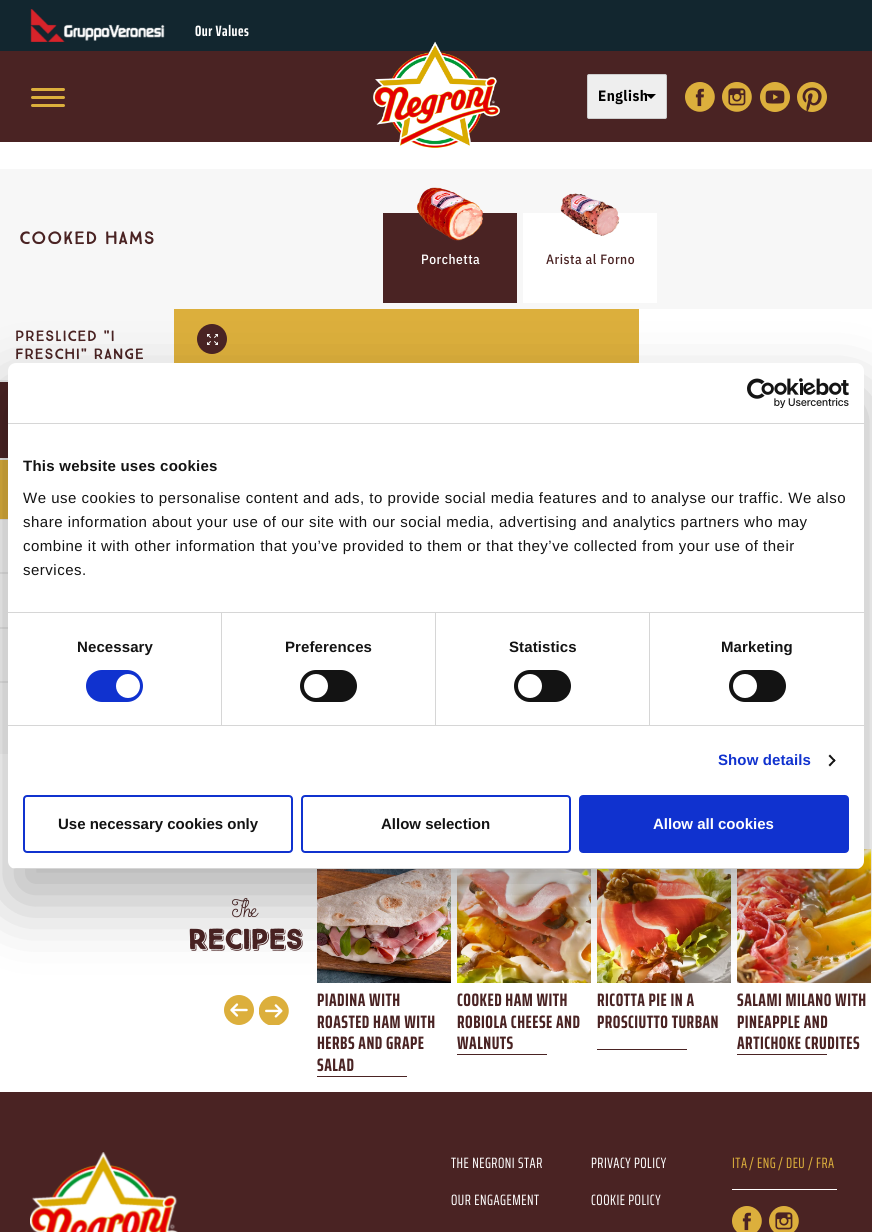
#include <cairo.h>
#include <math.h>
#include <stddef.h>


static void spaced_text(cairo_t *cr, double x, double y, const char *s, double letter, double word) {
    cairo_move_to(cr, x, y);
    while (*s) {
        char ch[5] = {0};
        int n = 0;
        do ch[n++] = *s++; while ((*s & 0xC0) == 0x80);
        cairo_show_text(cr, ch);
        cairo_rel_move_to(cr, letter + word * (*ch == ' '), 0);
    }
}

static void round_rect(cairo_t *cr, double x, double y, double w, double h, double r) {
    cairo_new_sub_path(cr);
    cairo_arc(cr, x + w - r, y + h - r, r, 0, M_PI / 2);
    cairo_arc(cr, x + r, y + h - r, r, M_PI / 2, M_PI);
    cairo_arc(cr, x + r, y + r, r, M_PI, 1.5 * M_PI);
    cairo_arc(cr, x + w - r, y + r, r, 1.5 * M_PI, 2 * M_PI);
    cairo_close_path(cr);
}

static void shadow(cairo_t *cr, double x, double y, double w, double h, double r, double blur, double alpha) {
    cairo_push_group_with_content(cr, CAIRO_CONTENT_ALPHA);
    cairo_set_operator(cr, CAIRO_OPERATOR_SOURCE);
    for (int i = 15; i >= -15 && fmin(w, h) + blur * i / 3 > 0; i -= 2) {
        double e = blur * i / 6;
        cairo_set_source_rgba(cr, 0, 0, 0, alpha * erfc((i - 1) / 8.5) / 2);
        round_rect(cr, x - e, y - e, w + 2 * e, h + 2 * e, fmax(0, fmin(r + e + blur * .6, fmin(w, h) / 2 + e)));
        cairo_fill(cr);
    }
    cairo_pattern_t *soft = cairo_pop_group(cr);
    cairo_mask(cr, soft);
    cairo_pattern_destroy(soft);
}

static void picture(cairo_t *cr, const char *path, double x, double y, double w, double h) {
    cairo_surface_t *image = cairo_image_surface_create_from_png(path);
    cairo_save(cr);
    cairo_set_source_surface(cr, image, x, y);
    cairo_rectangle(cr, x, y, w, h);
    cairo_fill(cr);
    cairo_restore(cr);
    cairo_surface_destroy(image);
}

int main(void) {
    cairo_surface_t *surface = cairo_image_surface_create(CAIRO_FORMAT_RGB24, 872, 1232);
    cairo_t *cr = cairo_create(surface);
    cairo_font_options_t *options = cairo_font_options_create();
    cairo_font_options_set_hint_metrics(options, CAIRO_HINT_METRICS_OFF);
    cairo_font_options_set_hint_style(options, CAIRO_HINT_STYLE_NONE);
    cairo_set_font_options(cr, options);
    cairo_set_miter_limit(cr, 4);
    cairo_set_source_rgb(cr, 1, 1, 1);
    cairo_paint(cr);
    cairo_set_source_rgb(cr, 0.071, 0.149, 0.184);
    cairo_rectangle(cr, 0, 0, 872, 51);
    cairo_fill(cr);
    picture(cr, "img1.png", 30, 9, 135, 33);
    cairo_select_font_face(cr, "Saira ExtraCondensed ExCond", CAIRO_FONT_SLANT_NORMAL, CAIRO_FONT_WEIGHT_BOLD);
    cairo_set_font_size(cr, 15);
    cairo_set_source_rgb(cr, 1, 1, 1);
    spaced_text(cr, 195, 36, "Our Values", 0.5, 0);
    cairo_set_source_rgb(cr, 0.29, 0.137, 0.137);
    cairo_rectangle(cr, 0, 51, 872, 91);
    cairo_fill(cr);
    picture(cr, "img2.png", 373, 41, 127, 107);
    cairo_set_source_rgb(cr, 0.863, 0.686, 0.235);
    round_rect(cr, 31, 96, 34, 3, 1.5);
    cairo_fill(cr);
    round_rect(cr, 31, 88, 34, 3, 1.5);
    cairo_fill(cr);
    round_rect(cr, 31, 104, 34, 3, 1.5);
    cairo_fill(cr);
    cairo_set_source_rgb(cr, 0.933, 0.933, 0.933);
    round_rect(cr, 587.5, 74.5, 79, 44, 1.5);
    cairo_fill_preserve(cr);
    cairo_set_source_rgb(cr, 0.8, 0.8, 0.8);
    cairo_set_line_width(cr, 1);
    cairo_stroke(cr);
    cairo_select_font_face(cr, "IBM Plex Sans Condensed", CAIRO_FONT_SLANT_NORMAL, CAIRO_FONT_WEIGHT_BOLD);
    cairo_set_source_rgb(cr, 0, 0, 0);
    spaced_text(cr, 598, 101, "English", 0.5, 0);
    cairo_new_path(cr);
    cairo_move_to(cr, 646, 94);
    cairo_line_to(cr, 656, 94);
    cairo_line_to(cr, 651, 99);
    cairo_close_path(cr);
    cairo_fill(cr);
    picture(cr, "img3.png", 685, 82, 30, 30);
    picture(cr, "img4.png", 722, 82, 30, 30);
    picture(cr, "img5.png", 760, 82, 30, 30);
    picture(cr, "img6.png", 797, 82, 30, 30);
    cairo_set_source_rgb(cr, 0.965, 0.965, 0.965);
    cairo_rectangle(cr, 0, 169, 872, 140);
    cairo_fill(cr);
    cairo_select_font_face(cr, "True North", CAIRO_FONT_SLANT_NORMAL, CAIRO_FONT_WEIGHT_NORMAL);
    cairo_set_font_size(cr, 18);
    cairo_set_source_rgb(cr, 0.29, 0.137, 0.137);
    spaced_text(cr, 19, 244, "Cooked Hams", 0.5, 0);
    cairo_rectangle(cr, 383, 213, 134, 90);
    cairo_fill(cr);
    picture(cr, "img7.png", 417, 187, 66, 54);
    cairo_select_font_face(cr, "IBM Plex Sans Condensed Medium", CAIRO_FONT_SLANT_NORMAL, CAIRO_FONT_WEIGHT_NORMAL);
    cairo_set_font_size(cr, 13.5);
    cairo_set_source_rgb(cr, 1, 1, 1);
    spaced_text(cr, 421, 264, "Porchetta", 0.5, 0);
    cairo_rectangle(cr, 523, 213, 134, 90);
    cairo_fill(cr);
    picture(cr, "img8.png", 560, 193, 60, 43);
    cairo_set_source_rgb(cr, 0.29, 0.137, 0.137);
    spaced_text(cr, 546, 264, "Arista al Forno", 0.5, 0);
    cairo_set_source_rgb(cr, 0.965, 0.965, 0.965);
    cairo_rectangle(cr, 0, 309, 174, 445);
    cairo_fill(cr);
    cairo_set_source_rgb(cr, 0.902, 0.902, 0.902);
    cairo_rectangle(cr, 0, 380, 8, 2);
    cairo_fill(cr);
    cairo_select_font_face(cr, "True North", CAIRO_FONT_SLANT_NORMAL, CAIRO_FONT_WEIGHT_NORMAL);
    cairo_set_font_size(cr, 15);
    cairo_set_source_rgb(cr, 0.29, 0.137, 0.137);
    spaced_text(cr, 15, 341, "Presliced \"I", 0.5, 0);
    spaced_text(cr, 15, 359, "Freschi\" range", 0.5, 0);
    cairo_rectangle(cr, 0, 382, 8, 76);
    cairo_fill(cr);
    cairo_set_source_rgb(cr, 0.902, 0.902, 0.902);
    cairo_rectangle(cr, 0, 458, 8, 2);
    cairo_fill(cr);
    cairo_set_source_rgb(cr, 0.863, 0.686, 0.235);
    cairo_rectangle(cr, 0, 460, 8, 59);
    cairo_fill(cr);
    cairo_set_source_rgb(cr, 0.902, 0.902, 0.902);
    cairo_rectangle(cr, 0, 519, 8, 1);
    cairo_fill(cr);
    cairo_rectangle(cr, 0, 572, 8, 2);
    cairo_fill(cr);
    cairo_rectangle(cr, 0, 627, 8, 2);
    cairo_fill(cr);
    cairo_rectangle(cr, 0, 681, 8, 2);
    cairo_fill(cr);
    cairo_set_source_rgb(cr, 0.863, 0.686, 0.235);
    cairo_rectangle(cr, 174, 309, 465, 54);
    cairo_fill(cr);
    picture(cr, "img9.png", 197, 324, 30, 30);
    cairo_select_font_face(cr, "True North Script", CAIRO_FONT_SLANT_ITALIC, CAIRO_FONT_WEIGHT_NORMAL);
    cairo_set_font_size(cr, 29);
    cairo_set_source_rgb(cr, 0.29, 0.137, 0.137);
    spaced_text(cr, 232, 917, "The", -2, 0);
    cairo_select_font_face(cr, "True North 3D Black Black", CAIRO_FONT_SLANT_NORMAL, CAIRO_FONT_WEIGHT_NORMAL);
    spaced_text(cr, 187, 949, "recipes", -2, 0);
    picture(cr, "img10.png", 224, 995, 30, 30);
    picture(cr, "img11.png", 259, 995, 30, 30);
    picture(cr, "img12.png", 317, 869, 134, 114);
    cairo_select_font_face(cr, "Saira ExtraCondensed ExCond", CAIRO_FONT_SLANT_NORMAL, CAIRO_FONT_WEIGHT_BOLD);
    cairo_set_font_size(cr, 18);
    spaced_text(cr, 317, 1006, "PIADINA WITH", 0.5, 0);
    spaced_text(cr, 317, 1028, "ROASTED HAM WITH", 0.5, 0);
    spaced_text(cr, 317, 1049, "HERBS AND GRAPE", 0.5, 0);
    spaced_text(cr, 317, 1071, "SALAD", 0.5, 0);
    cairo_rectangle(cr, 317, 1076, 90, 1);
    cairo_fill(cr);
    picture(cr, "img13.png", 457, 869, 134, 114);
    spaced_text(cr, 457, 1006, "COOKED HAM WITH", 0.5, 0);
    spaced_text(cr, 457, 1028, "ROBIOLA CHEESE AND", 0.5, 0);
    spaced_text(cr, 457, 1049, "WALNUTS", 0.5, 0);
    cairo_rectangle(cr, 457, 1054, 90, 1);
    cairo_fill(cr);
    picture(cr, "img14.png", 597, 869, 134, 114);
    spaced_text(cr, 597, 1006, "RICOTTA PIE IN A", 0.5, 0);
    spaced_text(cr, 597, 1028, "PROSCIUTTO TURBAN", 0.5, 0);
    cairo_rectangle(cr, 597, 1049, 90, 1);
    cairo_fill(cr);
    picture(cr, "img15.png", 737, 849, 134, 134);
    spaced_text(cr, 737, 1006, "SALAMI MILANO WITH", 0.5, 0);
    spaced_text(cr, 737, 1028, "PINEAPPLE AND", 0.5, 0);
    spaced_text(cr, 737, 1049, "ARTICHOKE CRUDITES", 0.5, 0);
    cairo_rectangle(cr, 737, 1054, 90, 1);
    cairo_fill(cr);
    cairo_rectangle(cr, 0, 1092, 872, 140);
    cairo_fill(cr);
    picture(cr, "img16.png", 30, 1152, 148, 80);
    cairo_select_font_face(cr, "Saira ExtraCondensed", CAIRO_FONT_SLANT_NORMAL, CAIRO_FONT_WEIGHT_NORMAL);
    cairo_set_font_size(cr, 15);
    cairo_set_source_rgb(cr, 1, 1, 1);
    spaced_text(cr, 451, 1168, "THE NEGRONI STAR", 0.5, 0);
    spaced_text(cr, 451, 1205, "OUR ENGAGEMENT", 0.5, 0);
    spaced_text(cr, 591, 1168, "PRIVACY POLICY", 0.5, 0);
    spaced_text(cr, 591, 1205, "COOKIE POLICY", 0.5, 0);
    cairo_set_source_rgb(cr, 0.863, 0.686, 0.235);
    spaced_text(cr, 732, 1168, "ITA", 0.5, 0);
    cairo_select_font_face(cr, "IBM Plex Sans Condensed", CAIRO_FONT_SLANT_NORMAL, CAIRO_FONT_WEIGHT_NORMAL);
    spaced_text(cr, 749, 1168, "/", 0.5, 0);
    cairo_select_font_face(cr, "Saira ExtraCondensed", CAIRO_FONT_SLANT_NORMAL, CAIRO_FONT_WEIGHT_NORMAL);
    spaced_text(cr, 757, 1168, "ENG", 0.5, 0);
    cairo_select_font_face(cr, "IBM Plex Sans Condensed", CAIRO_FONT_SLANT_NORMAL, CAIRO_FONT_WEIGHT_NORMAL);
    spaced_text(cr, 778, 1168, "/", 0.5, 0);
    cairo_select_font_face(cr, "Saira ExtraCondensed", CAIRO_FONT_SLANT_NORMAL, CAIRO_FONT_WEIGHT_NORMAL);
    spaced_text(cr, 786, 1168, "DEU", 0.5, 0);
    cairo_select_font_face(cr, "IBM Plex Sans Condensed", CAIRO_FONT_SLANT_NORMAL, CAIRO_FONT_WEIGHT_NORMAL);
    spaced_text(cr, 808, 1168, "/", 0.5, 0);
    cairo_select_font_face(cr, "Saira ExtraCondensed", CAIRO_FONT_SLANT_NORMAL, CAIRO_FONT_WEIGHT_NORMAL);
    spaced_text(cr, 816, 1168, "FRA", 0.5, 0);
    cairo_set_source_rgb(cr, 1, 1, 1);
    cairo_rectangle(cr, 732, 1189, 105, 1);
    cairo_fill(cr);
    picture(cr, "img17.png", 732, 1206, 30, 26);
    picture(cr, "img18.png", 769, 1206, 30, 26);
    cairo_set_source_rgb(cr, 0, 0, 0);
    shadow(cr, 8, 395, 856, 506, 8, 34, 0.3);
    cairo_set_source_rgb(cr, 1, 1, 1);
    round_rect(cr, 8, 363, 856, 506, 8);
    cairo_fill(cr);
    cairo_set_source_rgb(cr, 0.839, 0.839, 0.839);
    cairo_rectangle(cr, 8, 423, 856, 1);
    cairo_fill(cr);
    picture(cr, "img19.png", 747, 378, 102, 30);
    cairo_rectangle(cr, 8, 612, 856, 1);
    cairo_fill(cr);
    cairo_select_font_face(cr, "Liberation Sans", CAIRO_FONT_SLANT_NORMAL, CAIRO_FONT_WEIGHT_BOLD);
    cairo_set_source_rgb(cr, 0.078, 0.078, 0.078);
    spaced_text(cr, 23, 471, "This website uses cookies", 0.25, 0);
    cairo_select_font_face(cr, "Liberation Sans", CAIRO_FONT_SLANT_NORMAL, CAIRO_FONT_WEIGHT_NORMAL);
    spaced_text(cr, 23, 503, "We use cookies to personalise content and ads, to provide social media features and to analyse our traffic. We also", 0.5, 0);
    spaced_text(cr, 23, 527, "share information about your use of our site with our social media, advertising and analytics partners who may", 0.5, 0);
    spaced_text(cr, 23, 551, "combine it with other information that you’ve provided to them or that they’ve collected from your use of their", 0.5, 0);
    spaced_text(cr, 23, 575, "services.", 0.5, 0);
    cairo_set_source_rgb(cr, 0.839, 0.839, 0.839);
    cairo_rectangle(cr, 8, 725, 856, 1);
    cairo_fill(cr);
    cairo_rectangle(cr, 221, 613, 1, 112);
    cairo_fill(cr);
    cairo_select_font_face(cr, "Liberation Sans", CAIRO_FONT_SLANT_NORMAL, CAIRO_FONT_WEIGHT_BOLD);
    cairo_set_source_rgb(cr, 0.078, 0.078, 0.078);
    spaced_text(cr, 77, 652, "Necessary", 0.1, 0);
    cairo_set_source_rgb(cr, 0.063, 0.196, 0.812);
    round_rect(cr, 86, 670, 57, 32, 16);
    cairo_fill(cr);
    cairo_set_source_rgb(cr, 1, 1, 1);
    cairo_arc(cr, 128, 686, 12, 0, 2 * M_PI);
    cairo_fill(cr);
    cairo_set_source_rgb(cr, 0.839, 0.839, 0.839);
    cairo_rectangle(cr, 435, 613, 1, 112);
    cairo_fill(cr);
    cairo_set_source_rgb(cr, 0.078, 0.078, 0.078);
    spaced_text(cr, 285, 652, "Preferences", 0.1, 0);
    round_rect(cr, 300, 670, 57, 32, 16);
    cairo_fill(cr);
    cairo_set_source_rgb(cr, 1, 1, 1);
    cairo_arc(cr, 316, 686, 12, 0, 2 * M_PI);
    cairo_fill(cr);
    cairo_set_source_rgb(cr, 0.839, 0.839, 0.839);
    cairo_rectangle(cr, 649, 613, 1, 112);
    cairo_fill(cr);
    cairo_set_source_rgb(cr, 0.078, 0.078, 0.078);
    spaced_text(cr, 509, 652, "Statistics", 0.1, 0);
    round_rect(cr, 514, 670, 57, 32, 16);
    cairo_fill(cr);
    cairo_set_source_rgb(cr, 1, 1, 1);
    cairo_arc(cr, 530, 686, 12, 0, 2 * M_PI);
    cairo_fill(cr);
    cairo_set_source_rgb(cr, 0.078, 0.078, 0.078);
    spaced_text(cr, 721, 652, "Marketing", 0.1, 0);
    round_rect(cr, 729, 670, 57, 32, 16);
    cairo_fill(cr);
    cairo_set_source_rgb(cr, 1, 1, 1);
    cairo_arc(cr, 745, 686, 12, 0, 2 * M_PI);
    cairo_fill(cr);
    cairo_set_source_rgb(cr, 0.063, 0.196, 0.812);
    spaced_text(cr, 718, 765, "Show details", 0.1, 0);
    cairo_set_source_rgb(cr, 0.078, 0.078, 0.078);
    cairo_new_path(cr);
    cairo_move_to(cr, 830, 754.5);
    cairo_line_to(cr, 835.5, 760.5);
    cairo_line_to(cr, 834.5, 762);
    cairo_line_to(cr, 828.5, 756);
    cairo_close_path(cr);
    cairo_fill(cr);
    cairo_new_path(cr);
    cairo_move_to(cr, 834.5, 759);
    cairo_line_to(cr, 835.5, 760.5);
    cairo_line_to(cr, 830, 766.5);
    cairo_line_to(cr, 828.5, 765);
    cairo_close_path(cr);
    cairo_fill(cr);
    cairo_save(cr);
    round_rect(cr, 8, 363, 856, 506, 8);
    cairo_clip(cr);
    cairo_set_source_rgb(cr, 0.839, 0.839, 0.839);
    cairo_rectangle(cr, 8, 868, 856, 1);
    cairo_fill(cr);
    cairo_restore(cr);
    round_rect(cr, 24, 796, 268, 56, 3);
    cairo_set_source_rgb(cr, 0.063, 0.196, 0.812);
    cairo_set_line_width(cr, 2);
    cairo_stroke(cr);
    cairo_set_source_rgb(cr, 0.078, 0.078, 0.078);
    cairo_move_to(cr, 58, 829);
    cairo_show_text(cr, "Use necessary cookies only");
    round_rect(cr, 302, 796, 268, 56, 3);
    cairo_set_source_rgb(cr, 0.063, 0.196, 0.812);
    cairo_stroke(cr);
    cairo_set_source_rgb(cr, 0.078, 0.078, 0.078);
    cairo_move_to(cr, 381, 829);
    cairo_show_text(cr, "Allow selection");
    cairo_set_source_rgb(cr, 0.063, 0.196, 0.812);
    round_rect(cr, 580, 796, 268, 56, 3);
    cairo_fill_preserve(cr);
    cairo_stroke(cr);
    cairo_set_source_rgb(cr, 1, 1, 1);
    cairo_move_to(cr, 653, 829);
    cairo_show_text(cr, "Allow all cookies");
    cairo_surface_write_to_png(surface, "page.png");
    cairo_font_options_destroy(options);
    cairo_destroy(cr);
    cairo_surface_destroy(surface);
    return 0;
}
